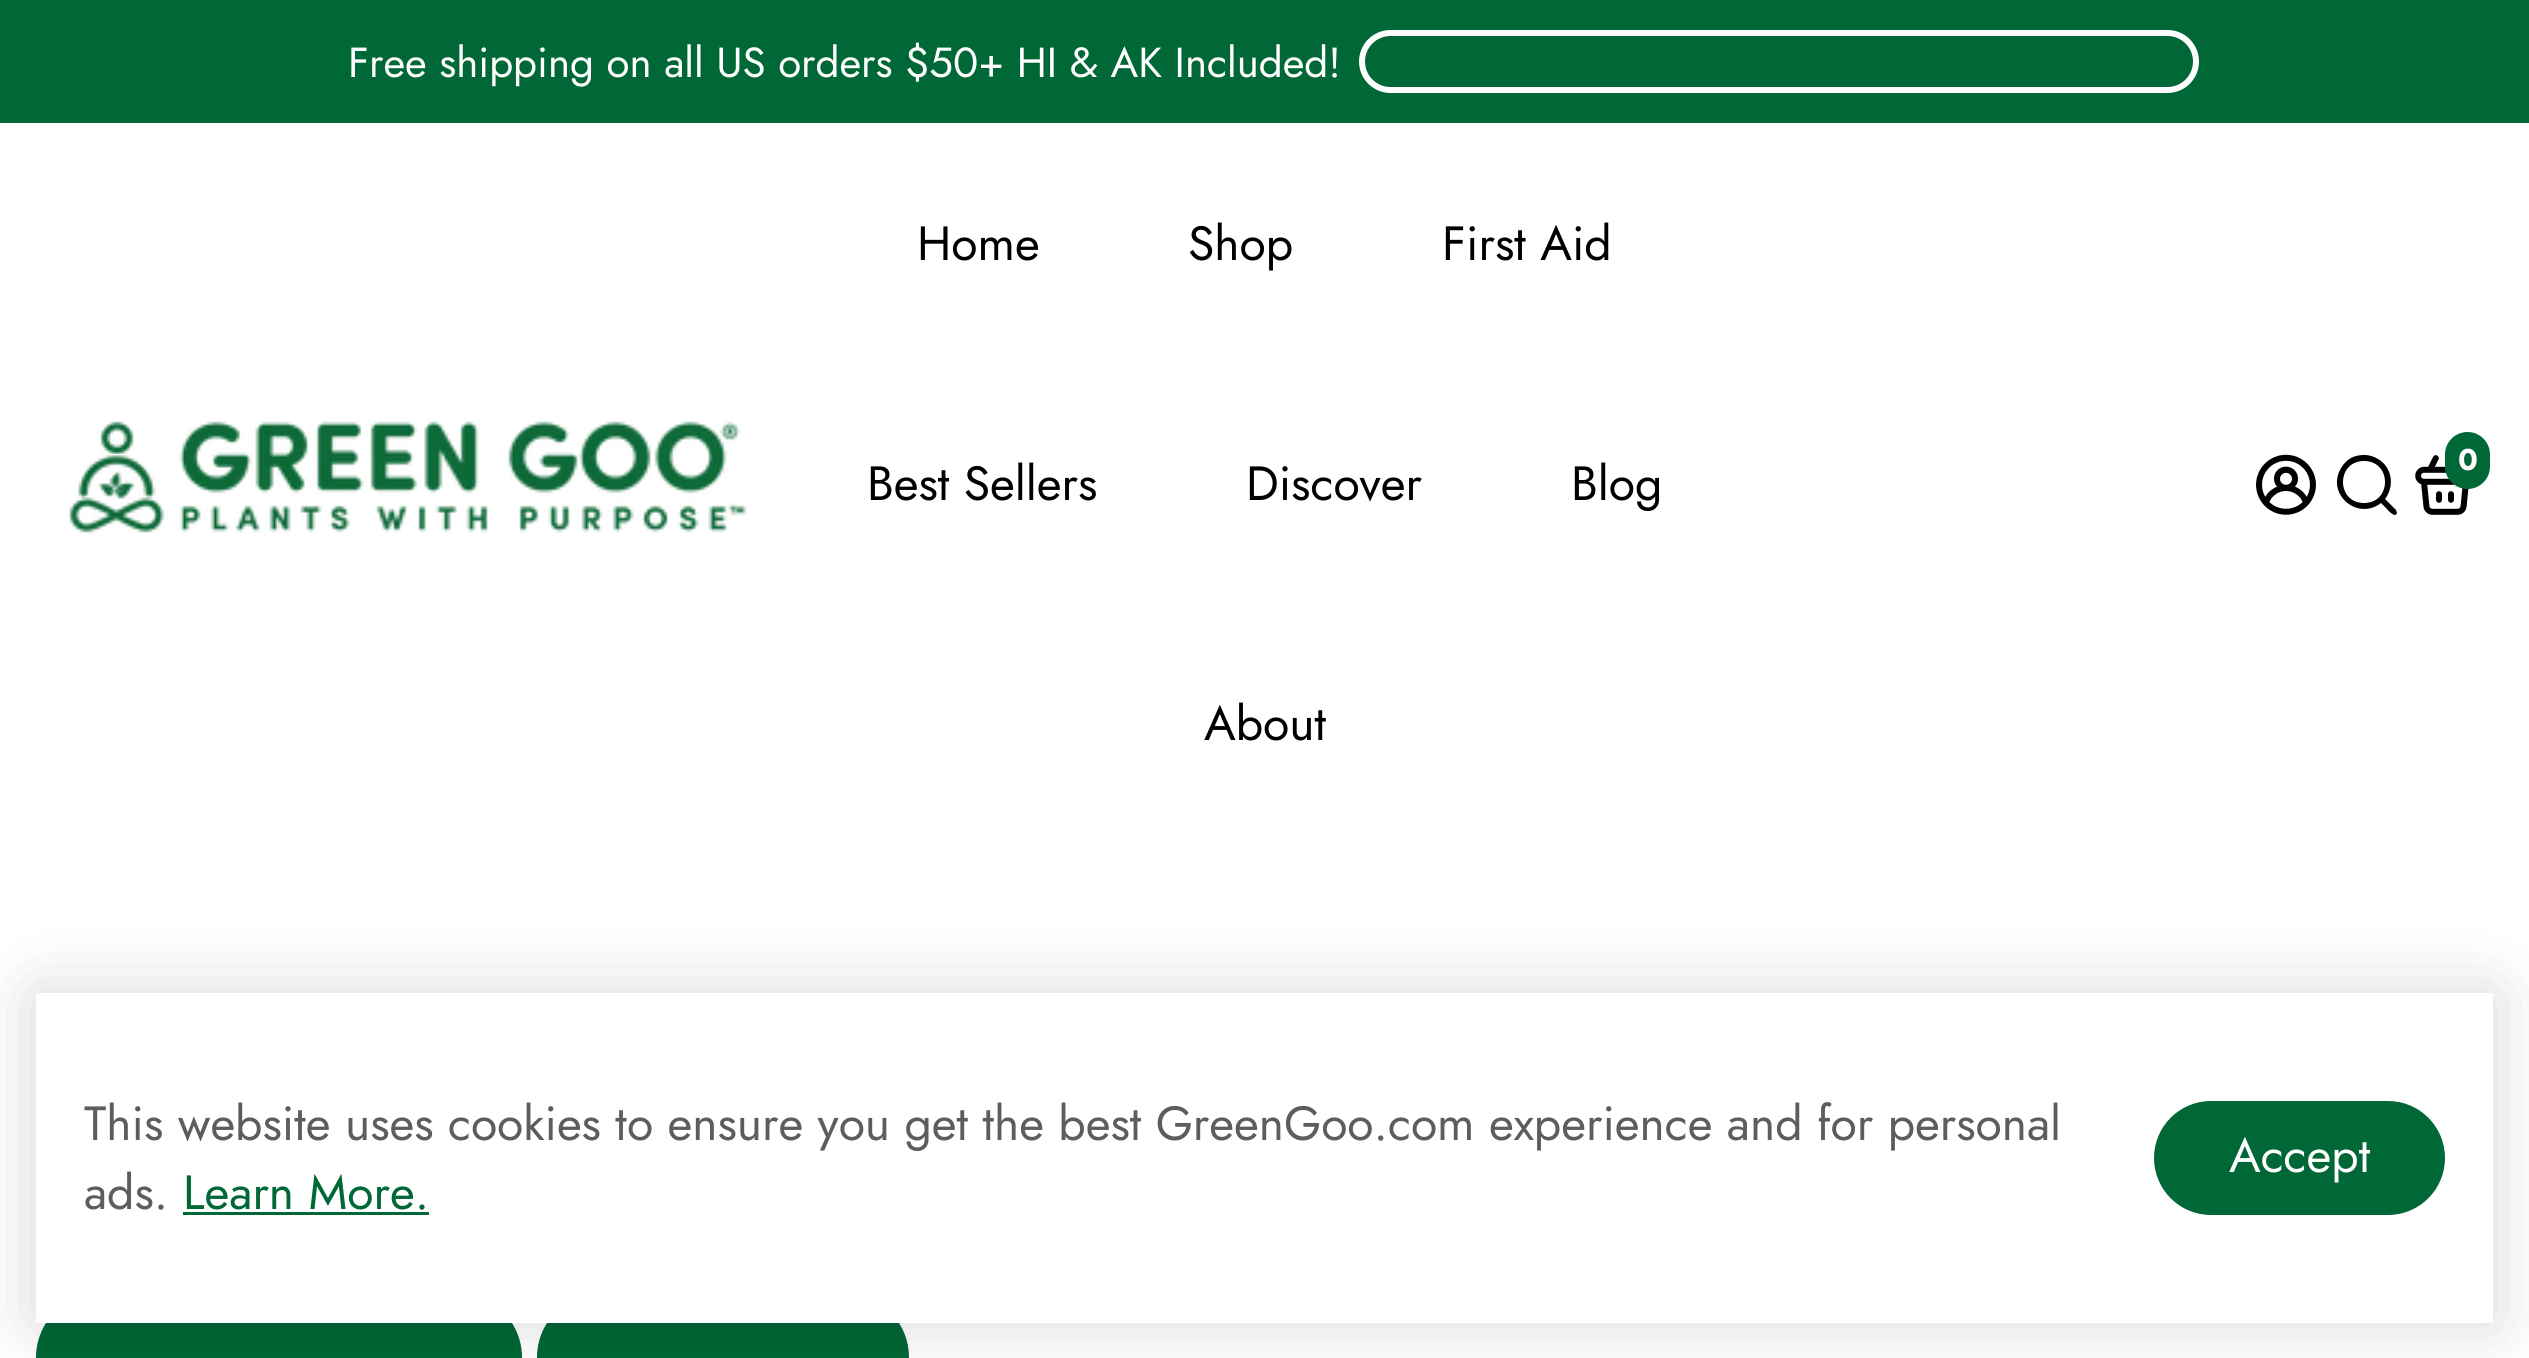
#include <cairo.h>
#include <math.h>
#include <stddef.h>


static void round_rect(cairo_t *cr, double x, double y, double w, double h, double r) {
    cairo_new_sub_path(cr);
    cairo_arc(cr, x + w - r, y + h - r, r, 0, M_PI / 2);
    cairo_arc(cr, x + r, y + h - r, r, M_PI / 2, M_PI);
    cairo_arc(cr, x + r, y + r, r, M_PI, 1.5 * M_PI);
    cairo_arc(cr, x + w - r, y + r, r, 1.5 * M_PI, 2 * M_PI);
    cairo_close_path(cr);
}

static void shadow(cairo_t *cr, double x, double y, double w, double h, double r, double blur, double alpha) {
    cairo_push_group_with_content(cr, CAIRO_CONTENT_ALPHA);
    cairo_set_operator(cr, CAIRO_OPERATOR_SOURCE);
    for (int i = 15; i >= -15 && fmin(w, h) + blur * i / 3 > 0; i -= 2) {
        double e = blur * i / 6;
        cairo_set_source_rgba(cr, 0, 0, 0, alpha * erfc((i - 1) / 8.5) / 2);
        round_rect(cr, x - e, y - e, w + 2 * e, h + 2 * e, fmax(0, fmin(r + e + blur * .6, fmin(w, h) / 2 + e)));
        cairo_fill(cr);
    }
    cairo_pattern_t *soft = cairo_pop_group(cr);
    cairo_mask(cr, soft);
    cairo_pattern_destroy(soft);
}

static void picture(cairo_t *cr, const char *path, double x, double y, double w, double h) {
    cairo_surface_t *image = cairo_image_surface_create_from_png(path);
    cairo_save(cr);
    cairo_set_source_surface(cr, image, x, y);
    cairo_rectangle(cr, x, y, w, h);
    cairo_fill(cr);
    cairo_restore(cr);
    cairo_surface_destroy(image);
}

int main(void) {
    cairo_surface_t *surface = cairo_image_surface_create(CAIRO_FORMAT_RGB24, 2529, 1358);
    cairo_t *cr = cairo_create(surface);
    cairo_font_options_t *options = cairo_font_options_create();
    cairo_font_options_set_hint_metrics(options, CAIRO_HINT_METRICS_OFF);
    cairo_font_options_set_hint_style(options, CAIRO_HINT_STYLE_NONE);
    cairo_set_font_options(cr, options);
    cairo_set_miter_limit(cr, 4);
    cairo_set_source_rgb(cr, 1, 1, 1);
    cairo_paint(cr);
    cairo_set_source_rgb(cr, 0, 0.404, 0.212);
    cairo_rectangle(cr, 0, 0, 2529, 123);
    cairo_fill(cr);
    cairo_select_font_face(cr, "Jost", CAIRO_FONT_SLANT_NORMAL, CAIRO_FONT_WEIGHT_NORMAL);
    cairo_set_font_size(cr, 42);
    cairo_set_source_rgb(cr, 1, 1, 1);
    cairo_move_to(cr, 348, 77);
    cairo_show_text(cr, "Free shipping on all US orders $50+ HI & AK Included!");
    round_rect(cr, 1362, 33, 834, 57, 28.5);
    cairo_set_line_width(cr, 6);
    cairo_stroke(cr);
    picture(cr, "img1.png", 69, 421, 678, 112);
    cairo_set_font_size(cr, 48);
    cairo_set_source_rgb(cr, 0, 0, 0);
    cairo_move_to(cr, 917, 260);
    cairo_show_text(cr, "Home");
    cairo_move_to(cr, 1188, 260);
    cairo_show_text(cr, "Shop");
    cairo_move_to(cr, 1442, 260);
    cairo_show_text(cr, "First Aid");
    cairo_move_to(cr, 867, 500);
    cairo_show_text(cr, "Best Sellers");
    cairo_move_to(cr, 1246, 500);
    cairo_show_text(cr, "Discover");
    cairo_move_to(cr, 1571, 500);
    cairo_show_text(cr, "Blog");
    cairo_move_to(cr, 1204, 740);
    cairo_show_text(cr, "About");
    picture(cr, "img2.png", 2256, 454, 60, 61);
    cairo_new_path(cr);
    cairo_move_to(cr, 2396, 510);
    cairo_line_to(cr, 2385, 499);
    cairo_curve_to(cr, 2395, 486, 2392, 467, 2378, 459);
    cairo_curve_to(cr, 2370, 454, 2361, 454, 2353, 457);
    cairo_curve_to(cr, 2348, 459, 2343, 464, 2340, 470);
    cairo_curve_to(cr, 2327, 495, 2358, 521, 2381, 503);
    cairo_line_to(cr, 2386, 508);
    cairo_curve_to(cr, 2387, 509, 2395, 519, 2397, 513);
    cairo_close_path(cr);
    cairo_move_to(cr, 2364, 503);
    cairo_curve_to(cr, 2336, 503, 2336, 461, 2364, 461);
    cairo_curve_to(cr, 2392, 461, 2392, 503, 2364, 503);
    cairo_close_path(cr);
    cairo_fill(cr);
    picture(cr, "img3.png", 2415, 455, 54, 60);
    cairo_set_source_rgb(cr, 0, 0.404, 0.212);
    round_rect(cr, 2445, 432, 45, 57, 22.5);
    cairo_fill(cr);
    cairo_select_font_face(cr, "Jost", CAIRO_FONT_SLANT_NORMAL, CAIRO_FONT_WEIGHT_BOLD);
    cairo_set_font_size(cr, 30);
    cairo_set_source_rgb(cr, 1, 1, 1);
    cairo_move_to(cr, 2458, 470);
    cairo_show_text(cr, "0");
    cairo_set_source_rgb(cr, 0, 0.404, 0.212);
    round_rect(cr, 36, 1293, 486, 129, 64.5);
    cairo_fill(cr);
    round_rect(cr, 537, 1293, 372, 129, 64.5);
    cairo_fill(cr);
    cairo_set_source_rgb(cr, 0, 0, 0);
    shadow(cr, 36, 993, 2457, 330, 0, 36, 0.16);
    cairo_set_source_rgb(cr, 1, 1, 1);
    cairo_rectangle(cr, 36, 993, 2457, 330);
    cairo_fill(cr);
    cairo_select_font_face(cr, "Jost", CAIRO_FONT_SLANT_NORMAL, CAIRO_FONT_WEIGHT_NORMAL);
    cairo_set_font_size(cr, 48);
    cairo_set_source_rgb(cr, 0.353, 0.369, 0.373);
    cairo_move_to(cr, 84, 1140);
    cairo_show_text(cr, "This website uses cookies to ensure you get the best GreenGoo.com experience and for personal");
    cairo_move_to(cr, 84, 1209);
    cairo_show_text(cr, "ads.");
    cairo_set_source_rgb(cr, 0, 0.404, 0.212);
    cairo_move_to(cr, 183, 1209);
    cairo_show_text(cr, "Learn More.");
    cairo_rectangle(cr, 183, 1212, 246, 3);
    cairo_fill(cr);
    round_rect(cr, 2154, 1101, 291, 114, 57);
    cairo_fill(cr);
    cairo_set_source_rgb(cr, 1, 1, 1);
    cairo_move_to(cr, 2229, 1172);
    cairo_show_text(cr, "Accept");
    cairo_surface_write_to_png(surface, "page.png");
    cairo_font_options_destroy(options);
    cairo_destroy(cr);
    cairo_surface_destroy(surface);
    return 0;
}
